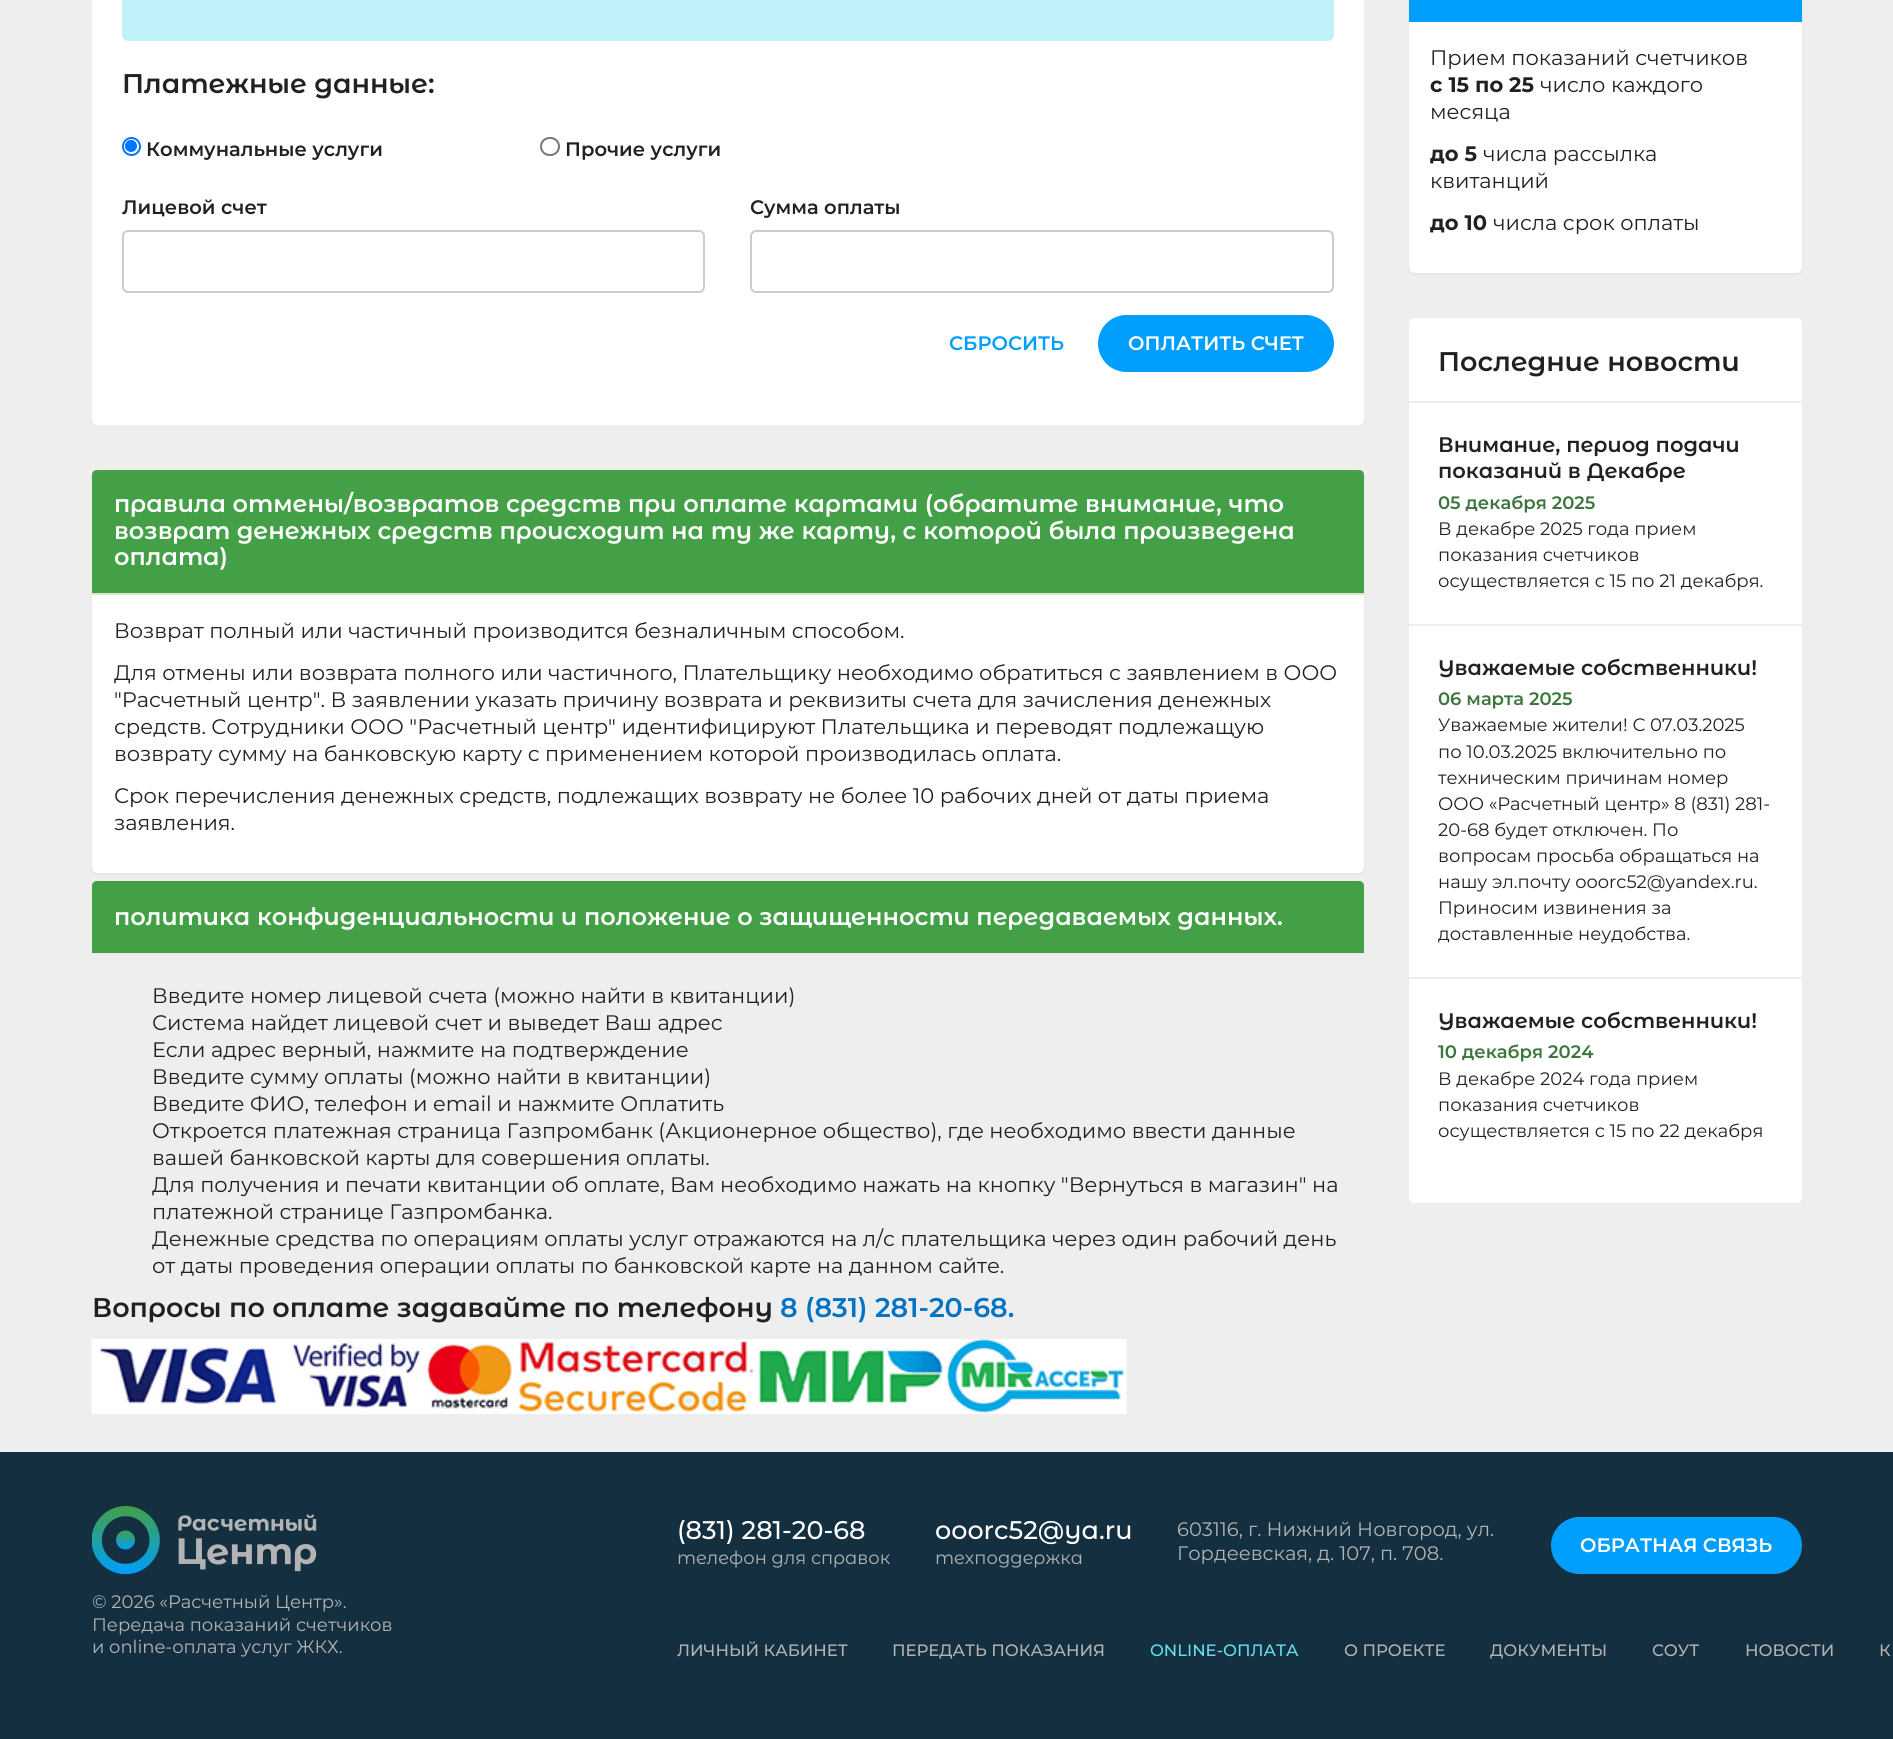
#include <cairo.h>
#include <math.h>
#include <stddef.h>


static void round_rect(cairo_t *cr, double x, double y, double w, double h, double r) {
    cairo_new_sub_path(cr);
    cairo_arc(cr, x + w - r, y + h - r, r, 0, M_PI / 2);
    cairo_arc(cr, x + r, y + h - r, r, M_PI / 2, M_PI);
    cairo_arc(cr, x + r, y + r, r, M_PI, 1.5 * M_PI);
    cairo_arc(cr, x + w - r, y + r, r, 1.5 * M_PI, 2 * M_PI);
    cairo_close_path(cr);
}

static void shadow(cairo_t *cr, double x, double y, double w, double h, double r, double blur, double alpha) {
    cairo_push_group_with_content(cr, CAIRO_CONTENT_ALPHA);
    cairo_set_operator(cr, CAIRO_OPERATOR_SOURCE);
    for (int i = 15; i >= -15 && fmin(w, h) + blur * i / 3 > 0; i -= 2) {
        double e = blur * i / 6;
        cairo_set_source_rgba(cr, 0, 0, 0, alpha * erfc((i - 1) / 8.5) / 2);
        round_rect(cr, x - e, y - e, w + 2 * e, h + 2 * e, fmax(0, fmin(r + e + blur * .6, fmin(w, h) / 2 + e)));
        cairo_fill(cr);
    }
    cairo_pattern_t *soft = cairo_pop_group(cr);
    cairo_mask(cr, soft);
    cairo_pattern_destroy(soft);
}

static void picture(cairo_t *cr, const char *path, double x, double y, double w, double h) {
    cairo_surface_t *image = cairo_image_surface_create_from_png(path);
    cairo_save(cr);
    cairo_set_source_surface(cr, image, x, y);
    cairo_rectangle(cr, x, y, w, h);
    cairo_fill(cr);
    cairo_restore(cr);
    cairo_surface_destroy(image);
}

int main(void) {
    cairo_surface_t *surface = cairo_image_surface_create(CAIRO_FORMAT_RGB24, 1893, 1739);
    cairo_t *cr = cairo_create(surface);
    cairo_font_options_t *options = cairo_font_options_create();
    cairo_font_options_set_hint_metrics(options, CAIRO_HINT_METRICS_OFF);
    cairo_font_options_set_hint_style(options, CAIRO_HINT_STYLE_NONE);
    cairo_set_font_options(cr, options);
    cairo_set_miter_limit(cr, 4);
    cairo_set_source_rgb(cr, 0.933, 0.933, 0.933);
    cairo_paint(cr);
    cairo_set_source_rgb(cr, 1, 1, 1);
    round_rect(cr, 92, -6, 1272, 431, 6);
    cairo_fill(cr);
    cairo_set_source_rgb(cr, 0.761, 0.949, 0.976);
    round_rect(cr, 122, -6, 1212, 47, 6);
    cairo_fill(cr);
    cairo_select_font_face(cr, "Montserrat Alternates SemiBold", CAIRO_FONT_SLANT_NORMAL, CAIRO_FONT_WEIGHT_NORMAL);
    cairo_set_font_size(cr, 27);
    cairo_set_source_rgb(cr, 0.129, 0.129, 0.129);
    cairo_move_to(cr, 122, 93);
    cairo_show_text(cr, "Платежные данные:");
    cairo_new_path(cr);
    cairo_arc(cr, 131.5, 146.5, 8.5, 0, 2 * M_PI);
    cairo_set_source_rgb(cr, 0, 0.459, 1);
    cairo_stroke(cr);
    cairo_arc(cr, 131, 146, 6, 0, 2 * M_PI);
    cairo_fill(cr);
    cairo_select_font_face(cr, "Montserrat SemiBold", CAIRO_FONT_SLANT_NORMAL, CAIRO_FONT_WEIGHT_NORMAL);
    cairo_set_font_size(cr, 19.5);
    cairo_set_source_rgb(cr, 0.129, 0.129, 0.129);
    cairo_move_to(cr, 146, 156);
    cairo_show_text(cr, "Коммунальные услуги");
    round_rect(cr, 541, 138, 18, 17, 8.5);
    cairo_set_source_rgb(cr, 0.463, 0.463, 0.463);
    cairo_stroke(cr);
    cairo_set_source_rgb(cr, 0.129, 0.129, 0.129);
    cairo_move_to(cr, 565, 156);
    cairo_show_text(cr, "Прочие услуги");
    cairo_move_to(cr, 122, 214);
    cairo_show_text(cr, "Лицевой счет");
    cairo_set_source_rgb(cr, 0.925, 0.925, 0.925);
    cairo_new_path(cr);
    cairo_move_to(cr, 128, 232);
    cairo_line_to(cr, 699, 232);
    cairo_curve_to(cr, 701, 232, 704, 235, 704, 237);
    cairo_line_to(cr, 704, 236);
    cairo_curve_to(cr, 704, 233, 702, 231, 699, 231);
    cairo_line_to(cr, 128, 231);
    cairo_curve_to(cr, 125, 231, 123, 233, 123, 236);
    cairo_line_to(cr, 123, 237);
    cairo_curve_to(cr, 123, 235, 125, 232, 128, 232);
    cairo_close_path(cr);
    cairo_fill(cr);
    round_rect(cr, 123, 231, 581, 61, 5);
    cairo_set_source_rgb(cr, 0.8, 0.8, 0.8);
    cairo_stroke(cr);
    cairo_set_source_rgb(cr, 0.129, 0.129, 0.129);
    cairo_move_to(cr, 750, 214);
    cairo_show_text(cr, "Сумма оплаты");
    cairo_set_source_rgb(cr, 0.925, 0.925, 0.925);
    cairo_new_path(cr);
    cairo_move_to(cr, 756, 232);
    cairo_line_to(cr, 1328, 232);
    cairo_curve_to(cr, 1330, 232, 1332, 235, 1332, 237);
    cairo_line_to(cr, 1332, 236);
    cairo_curve_to(cr, 1332, 233, 1330, 231, 1327, 231);
    cairo_line_to(cr, 757, 231);
    cairo_curve_to(cr, 754, 231, 752, 233, 752, 236);
    cairo_line_to(cr, 752, 237);
    cairo_curve_to(cr, 752, 235, 754, 232, 756, 232);
    cairo_close_path(cr);
    cairo_fill(cr);
    round_rect(cr, 751, 231, 582, 61, 5);
    cairo_set_source_rgb(cr, 0.8, 0.8, 0.8);
    cairo_stroke(cr);
    cairo_set_source_rgb(cr, 0, 0.62, 0.992);
    cairo_move_to(cr, 949, 350);
    cairo_show_text(cr, "СБРОСИТЬ");
    round_rect(cr, 1098, 315, 236, 57, 28.5);
    cairo_fill(cr);
    cairo_set_source_rgb(cr, 1, 1, 1);
    cairo_move_to(cr, 1128, 350);
    cairo_show_text(cr, "ОПЛАТИТЬ СЧЕТ");
    cairo_set_source_rgb(cr, 0, 0, 0);
    shadow(cr, 92, 471, 1272, 404, 6, 1, 0.05);
    cairo_set_source_rgb(cr, 1, 1, 1);
    round_rect(cr, 92, 470, 1272, 403, 6);
    cairo_fill(cr);
    cairo_set_source_rgb(cr, 0.263, 0.627, 0.278);
    cairo_new_path(cr);
    cairo_move_to(cr, 97, 470);
    cairo_line_to(cr, 1359, 470);
    cairo_curve_to(cr, 1362, 470, 1364, 472, 1364, 475);
    cairo_line_to(cr, 1364, 593);
    cairo_line_to(cr, 92, 593);
    cairo_line_to(cr, 92, 475);
    cairo_curve_to(cr, 92, 472, 94, 470, 97, 470);
    cairo_close_path(cr);
    cairo_fill(cr);
    cairo_select_font_face(cr, "Montserrat Alternates SemiBold", CAIRO_FONT_SLANT_NORMAL, CAIRO_FONT_WEIGHT_NORMAL);
    cairo_set_font_size(cr, 24);
    cairo_set_source_rgb(cr, 1, 1, 1);
    cairo_move_to(cr, 114, 512);
    cairo_show_text(cr, "правила отмены/возвратов средств при оплате картами (обратите внимание, что");
    cairo_move_to(cr, 114, 539);
    cairo_show_text(cr, "возврат денежных средств происходит на ту же карту, с которой была произведена");
    cairo_move_to(cr, 114, 565);
    cairo_show_text(cr, "оплата)");
    cairo_set_source_rgb(cr, 0.839, 0.914, 0.776);
    cairo_rectangle(cr, 92, 593, 1272, 2);
    cairo_fill(cr);
    cairo_select_font_face(cr, "Montserrat", CAIRO_FONT_SLANT_NORMAL, CAIRO_FONT_WEIGHT_NORMAL);
    cairo_set_font_size(cr, 21);
    cairo_set_source_rgb(cr, 0.129, 0.129, 0.129);
    cairo_move_to(cr, 114, 638);
    cairo_show_text(cr, "Возврат полный или частичный производится безналичным способом.");
    cairo_move_to(cr, 114, 680);
    cairo_show_text(cr, "Для отмены или возврата полного или частичного, Плательщику необходимо обратиться с заявлением в ООО");
    cairo_move_to(cr, 114, 707);
    cairo_show_text(cr, "\"Расчетный центр\". В заявлении указать причину возврата и реквизиты счета для зачисления денежных");
    cairo_move_to(cr, 114, 734);
    cairo_show_text(cr, "средств. Сотрудники ООО \"Расчетный центр\" идентифицируют Плательщика и переводят подлежащую");
    cairo_move_to(cr, 114, 761);
    cairo_show_text(cr, "возврату сумму на банковскую карту с применением которой производилась оплата.");
    cairo_move_to(cr, 114, 803);
    cairo_show_text(cr, "Срок перечисления денежных средств, подлежащих возврату не более 10 рабочих дней от даты приема");
    cairo_move_to(cr, 114, 830);
    cairo_show_text(cr, "заявления.");
    cairo_set_source_rgb(cr, 0, 0, 0);
    shadow(cr, 92, 882, 1272, 72, 6, 1, 0.05);
    cairo_set_source_rgb(cr, 0.263, 0.627, 0.278);
    cairo_new_path(cr);
    cairo_move_to(cr, 97, 881);
    cairo_line_to(cr, 1359, 881);
    cairo_curve_to(cr, 1362, 881, 1364, 883, 1364, 886);
    cairo_line_to(cr, 1364, 953);
    cairo_line_to(cr, 92, 953);
    cairo_line_to(cr, 92, 886);
    cairo_curve_to(cr, 92, 883, 94, 881, 97, 881);
    cairo_close_path(cr);
    cairo_fill(cr);
    cairo_select_font_face(cr, "Montserrat Alternates SemiBold", CAIRO_FONT_SLANT_NORMAL, CAIRO_FONT_WEIGHT_NORMAL);
    cairo_set_font_size(cr, 24);
    cairo_set_source_rgb(cr, 1, 1, 1);
    cairo_move_to(cr, 114, 925);
    cairo_show_text(cr, "политика конфиденциальности и положение о защищенности передаваемых данных.");
    cairo_select_font_face(cr, "Montserrat", CAIRO_FONT_SLANT_NORMAL, CAIRO_FONT_WEIGHT_NORMAL);
    cairo_set_font_size(cr, 21);
    cairo_set_source_rgb(cr, 0.129, 0.129, 0.129);
    cairo_move_to(cr, 152, 1003);
    cairo_show_text(cr, "Введите номер лицевой счета (можно найти в квитанции)");
    cairo_move_to(cr, 152, 1030);
    cairo_show_text(cr, "Система найдет лицевой счет и выведет Ваш адрес");
    cairo_move_to(cr, 152, 1057);
    cairo_show_text(cr, "Если адрес верный, нажмите на подтверждение");
    cairo_move_to(cr, 152, 1084);
    cairo_show_text(cr, "Введите сумму оплаты (можно найти в квитанции)");
    cairo_move_to(cr, 152, 1111);
    cairo_show_text(cr, "Введите ФИО, телефон и email и нажмите Оплатить");
    cairo_move_to(cr, 152, 1138);
    cairo_show_text(cr, "Откроется платежная страница Газпромбанк (Акционерное общество), где необходимо ввести данные");
    cairo_move_to(cr, 152, 1165);
    cairo_show_text(cr, "вашей банковской карты для совершения оплаты.");
    cairo_move_to(cr, 152, 1192);
    cairo_show_text(cr, "Для получения и печати квитанции об оплате, Вам необходимо нажать на кнопку \"Вернуться в магазин\" на");
    cairo_move_to(cr, 152, 1219);
    cairo_show_text(cr, "платежной странице Газпромбанка.");
    cairo_move_to(cr, 152, 1246);
    cairo_show_text(cr, "Денежные средства по операциям оплаты услуг отражаются на л/с плательщика через один рабочий день");
    cairo_move_to(cr, 152, 1273);
    cairo_show_text(cr, "от даты проведения операции оплаты по банковской карте на данном сайте.");
    cairo_select_font_face(cr, "Montserrat Alternates SemiBold", CAIRO_FONT_SLANT_NORMAL, CAIRO_FONT_WEIGHT_NORMAL);
    cairo_set_font_size(cr, 27);
    cairo_move_to(cr, 92, 1317);
    cairo_show_text(cr, "Вопросы по оплате задавайте по телефону");
    cairo_set_source_rgb(cr, 0, 0.451, 0.765);
    cairo_move_to(cr, 780, 1317);
    cairo_show_text(cr, "8 (831) 281-20-68.");
    picture(cr, "img1.png", 91, 1339, 1036, 75);
    cairo_set_source_rgb(cr, 0, 0, 0);
    shadow(cr, 1409, -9, 393, 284, 6, 1, 0.05);
    cairo_set_source_rgb(cr, 1, 1, 1);
    round_rect(cr, 1409, -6, 393, 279, 6);
    cairo_fill(cr);
    cairo_set_source_rgb(cr, 0, 0.62, 0.992);
    cairo_rectangle(cr, 1409, 0, 393, 22);
    cairo_fill(cr);
    cairo_select_font_face(cr, "Montserrat", CAIRO_FONT_SLANT_NORMAL, CAIRO_FONT_WEIGHT_NORMAL);
    cairo_set_font_size(cr, 21);
    cairo_set_source_rgb(cr, 0.129, 0.129, 0.129);
    cairo_move_to(cr, 1430, 65);
    cairo_show_text(cr, "Прием показаний счетчиков");
    cairo_select_font_face(cr, "Montserrat", CAIRO_FONT_SLANT_NORMAL, CAIRO_FONT_WEIGHT_BOLD);
    cairo_move_to(cr, 1430, 92);
    cairo_show_text(cr, "с 15 по 25");
    cairo_select_font_face(cr, "Montserrat", CAIRO_FONT_SLANT_NORMAL, CAIRO_FONT_WEIGHT_NORMAL);
    cairo_move_to(cr, 1540, 92);
    cairo_show_text(cr, "число каждого");
    cairo_move_to(cr, 1430, 119);
    cairo_show_text(cr, "месяца");
    cairo_select_font_face(cr, "Montserrat", CAIRO_FONT_SLANT_NORMAL, CAIRO_FONT_WEIGHT_BOLD);
    cairo_move_to(cr, 1430, 161);
    cairo_show_text(cr, "до 5");
    cairo_select_font_face(cr, "Montserrat", CAIRO_FONT_SLANT_NORMAL, CAIRO_FONT_WEIGHT_NORMAL);
    cairo_move_to(cr, 1483, 161);
    cairo_show_text(cr, "числа рассылка");
    cairo_move_to(cr, 1430, 188);
    cairo_show_text(cr, "квитанций");
    cairo_select_font_face(cr, "Montserrat", CAIRO_FONT_SLANT_NORMAL, CAIRO_FONT_WEIGHT_BOLD);
    cairo_move_to(cr, 1430, 230);
    cairo_show_text(cr, "до 10");
    cairo_select_font_face(cr, "Montserrat", CAIRO_FONT_SLANT_NORMAL, CAIRO_FONT_WEIGHT_NORMAL);
    cairo_move_to(cr, 1493, 230);
    cairo_show_text(cr, "числа срок оплаты");
    cairo_set_source_rgb(cr, 1, 1, 1);
    round_rect(cr, 1409, 318, 393, 885, 6);
    cairo_fill(cr);
    cairo_select_font_face(cr, "Montserrat Alternates SemiBold", CAIRO_FONT_SLANT_NORMAL, CAIRO_FONT_WEIGHT_NORMAL);
    cairo_set_font_size(cr, 27);
    cairo_set_source_rgb(cr, 0.129, 0.129, 0.129);
    cairo_move_to(cr, 1438, 371);
    cairo_show_text(cr, "Последние новости");
    cairo_set_source_rgb(cr, 0.933, 0.933, 0.933);
    cairo_rectangle(cr, 1409, 401, 393, 2);
    cairo_fill(cr);
    cairo_set_font_size(cr, 21);
    cairo_set_source_rgb(cr, 0.129, 0.129, 0.129);
    cairo_move_to(cr, 1438, 452);
    cairo_show_text(cr, "Внимание, период подачи");
    cairo_move_to(cr, 1438, 478);
    cairo_show_text(cr, "показаний в Декабре");
    cairo_select_font_face(cr, "Montserrat SemiBold", CAIRO_FONT_SLANT_NORMAL, CAIRO_FONT_WEIGHT_NORMAL);
    cairo_set_font_size(cr, 18);
    cairo_set_source_rgb(cr, 0.235, 0.463, 0.239);
    cairo_move_to(cr, 1438, 509);
    cairo_show_text(cr, "05 декабря 2025");
    cairo_select_font_face(cr, "Montserrat", CAIRO_FONT_SLANT_NORMAL, CAIRO_FONT_WEIGHT_NORMAL);
    cairo_set_source_rgb(cr, 0.129, 0.129, 0.129);
    cairo_move_to(cr, 1438, 535);
    cairo_show_text(cr, "В декабре 2025 года прием");
    cairo_move_to(cr, 1438, 561);
    cairo_show_text(cr, "показания счетчиков");
    cairo_move_to(cr, 1438, 587);
    cairo_show_text(cr, "осуществляется с 15 по 21 декабря.");
    cairo_set_source_rgb(cr, 0.933, 0.933, 0.933);
    cairo_rectangle(cr, 1409, 624, 393, 2);
    cairo_fill(cr);
    cairo_select_font_face(cr, "Montserrat Alternates SemiBold", CAIRO_FONT_SLANT_NORMAL, CAIRO_FONT_WEIGHT_NORMAL);
    cairo_set_font_size(cr, 21);
    cairo_set_source_rgb(cr, 0.129, 0.129, 0.129);
    cairo_move_to(cr, 1438, 675);
    cairo_show_text(cr, "Уважаемые собственники!");
    cairo_select_font_face(cr, "Montserrat SemiBold", CAIRO_FONT_SLANT_NORMAL, CAIRO_FONT_WEIGHT_NORMAL);
    cairo_set_font_size(cr, 18);
    cairo_set_source_rgb(cr, 0.235, 0.463, 0.239);
    cairo_move_to(cr, 1438, 705);
    cairo_show_text(cr, "06 марта 2025");
    cairo_select_font_face(cr, "Montserrat", CAIRO_FONT_SLANT_NORMAL, CAIRO_FONT_WEIGHT_NORMAL);
    cairo_set_source_rgb(cr, 0.129, 0.129, 0.129);
    cairo_move_to(cr, 1438, 731);
    cairo_show_text(cr, "Уважаемые жители! С 07.03.2025");
    cairo_move_to(cr, 1438, 758);
    cairo_show_text(cr, "по 10.03.2025 включительно по");
    cairo_move_to(cr, 1438, 784);
    cairo_show_text(cr, "техническим причинам номер");
    cairo_move_to(cr, 1438, 810);
    cairo_show_text(cr, "ООО «Расчетный центр» 8 (831) 281-");
    cairo_move_to(cr, 1438, 836);
    cairo_show_text(cr, "20-68 будет отключен. По");
    cairo_move_to(cr, 1438, 862);
    cairo_show_text(cr, "вопросам просьба обращаться на");
    cairo_move_to(cr, 1438, 888);
    cairo_show_text(cr, "нашу эл.почту ooorc52@yandex.ru.");
    cairo_move_to(cr, 1438, 914);
    cairo_show_text(cr, "Приносим извинения за");
    cairo_move_to(cr, 1438, 940);
    cairo_show_text(cr, "доставленные неудобства.");
    cairo_set_source_rgb(cr, 0.933, 0.933, 0.933);
    cairo_rectangle(cr, 1409, 977, 393, 2);
    cairo_fill(cr);
    cairo_select_font_face(cr, "Montserrat Alternates SemiBold", CAIRO_FONT_SLANT_NORMAL, CAIRO_FONT_WEIGHT_NORMAL);
    cairo_set_font_size(cr, 21);
    cairo_set_source_rgb(cr, 0.129, 0.129, 0.129);
    cairo_move_to(cr, 1438, 1028);
    cairo_show_text(cr, "Уважаемые собственники!");
    cairo_select_font_face(cr, "Montserrat SemiBold", CAIRO_FONT_SLANT_NORMAL, CAIRO_FONT_WEIGHT_NORMAL);
    cairo_set_font_size(cr, 18);
    cairo_set_source_rgb(cr, 0.235, 0.463, 0.239);
    cairo_move_to(cr, 1438, 1058);
    cairo_show_text(cr, "10 декабря 2024");
    cairo_select_font_face(cr, "Montserrat", CAIRO_FONT_SLANT_NORMAL, CAIRO_FONT_WEIGHT_NORMAL);
    cairo_set_source_rgb(cr, 0.129, 0.129, 0.129);
    cairo_move_to(cr, 1438, 1085);
    cairo_show_text(cr, "В декабре 2024 года прием");
    cairo_move_to(cr, 1438, 1111);
    cairo_show_text(cr, "показания счетчиков");
    cairo_move_to(cr, 1438, 1137);
    cairo_show_text(cr, "осуществляется с 15 по 22 декабря");
    cairo_set_source_rgb(cr, 0.082, 0.188, 0.251);
    cairo_rectangle(cr, 0, 1452, 1893, 287);
    cairo_fill(cr);
    picture(cr, "img2.png", 92, 1506, 225, 68);
    cairo_set_source_rgb(cr, 0.702, 0.702, 0.702);
    cairo_move_to(cr, 92, 1608);
    cairo_show_text(cr, "© 2026 «Расчетный Центр».");
    cairo_move_to(cr, 92, 1631);
    cairo_show_text(cr, "Передача показаний счетчиков");
    cairo_move_to(cr, 92, 1653);
    cairo_show_text(cr, "и online-оплата услуг ЖКХ.");
    cairo_select_font_face(cr, "Montserrat Alternates Medium", CAIRO_FONT_SLANT_NORMAL, CAIRO_FONT_WEIGHT_NORMAL);
    cairo_set_font_size(cr, 25.5);
    cairo_set_source_rgb(cr, 1, 1, 1);
    cairo_move_to(cr, 677, 1539);
    cairo_show_text(cr, "(831) 281-20-68");
    cairo_select_font_face(cr, "Montserrat Alternates", CAIRO_FONT_SLANT_NORMAL, CAIRO_FONT_WEIGHT_NORMAL);
    cairo_set_font_size(cr, 18);
    cairo_set_source_rgb(cr, 0.702, 0.702, 0.702);
    cairo_move_to(cr, 677, 1564);
    cairo_show_text(cr, "телефон для справок");
    cairo_select_font_face(cr, "Montserrat Alternates Medium", CAIRO_FONT_SLANT_NORMAL, CAIRO_FONT_WEIGHT_NORMAL);
    cairo_set_font_size(cr, 25.5);
    cairo_set_source_rgb(cr, 1, 1, 1);
    cairo_move_to(cr, 935, 1539);
    cairo_show_text(cr, "ooorc52@ya.ru");
    cairo_select_font_face(cr, "Montserrat Alternates", CAIRO_FONT_SLANT_NORMAL, CAIRO_FONT_WEIGHT_NORMAL);
    cairo_set_font_size(cr, 18);
    cairo_set_source_rgb(cr, 0.702, 0.702, 0.702);
    cairo_move_to(cr, 935, 1564);
    cairo_show_text(cr, "техподдержка");
    cairo_select_font_face(cr, "Montserrat", CAIRO_FONT_SLANT_NORMAL, CAIRO_FONT_WEIGHT_NORMAL);
    cairo_set_font_size(cr, 19.5);
    cairo_move_to(cr, 1177, 1536);
    cairo_show_text(cr, "603116, г. Нижний Новгород, ул.");
    cairo_move_to(cr, 1177, 1560);
    cairo_show_text(cr, "Гордеевская, д. 107, п. 708.");
    cairo_set_source_rgb(cr, 0, 0.62, 0.992);
    round_rect(cr, 1551, 1517, 251, 57, 28.5);
    cairo_fill(cr);
    cairo_select_font_face(cr, "Montserrat SemiBold", CAIRO_FONT_SLANT_NORMAL, CAIRO_FONT_WEIGHT_NORMAL);
    cairo_set_source_rgb(cr, 1, 1, 1);
    cairo_move_to(cr, 1580, 1552);
    cairo_show_text(cr, "ОБРАТНАЯ СВЯЗЬ");
    cairo_select_font_face(cr, "Montserrat Medium", CAIRO_FONT_SLANT_NORMAL, CAIRO_FONT_WEIGHT_NORMAL);
    cairo_set_font_size(cr, 16.5);
    cairo_set_source_rgb(cr, 0.702, 0.702, 0.702);
    cairo_move_to(cr, 677, 1656);
    cairo_show_text(cr, "ЛИЧНЫЙ КАБИНЕТ");
    cairo_move_to(cr, 892, 1656);
    cairo_show_text(cr, "ПЕРЕДАТЬ ПОКАЗАНИЯ");
    cairo_set_source_rgb(cr, 0.4, 0.871, 0.937);
    cairo_move_to(cr, 1150, 1656);
    cairo_show_text(cr, "ONLINE-ОПЛАТА");
    cairo_set_source_rgb(cr, 0.702, 0.702, 0.702);
    cairo_move_to(cr, 1344, 1656);
    cairo_show_text(cr, "О ПРОЕКТЕ");
    cairo_move_to(cr, 1490, 1656);
    cairo_show_text(cr, "ДОКУМЕНТЫ");
    cairo_move_to(cr, 1652, 1656);
    cairo_show_text(cr, "СОУТ");
    cairo_move_to(cr, 1745, 1656);
    cairo_show_text(cr, "НОВОСТИ");
    cairo_move_to(cr, 1879, 1656);
    cairo_show_text(cr, "К");
    cairo_surface_write_to_png(surface, "page.png");
    cairo_font_options_destroy(options);
    cairo_destroy(cr);
    cairo_surface_destroy(surface);
    return 0;
}
